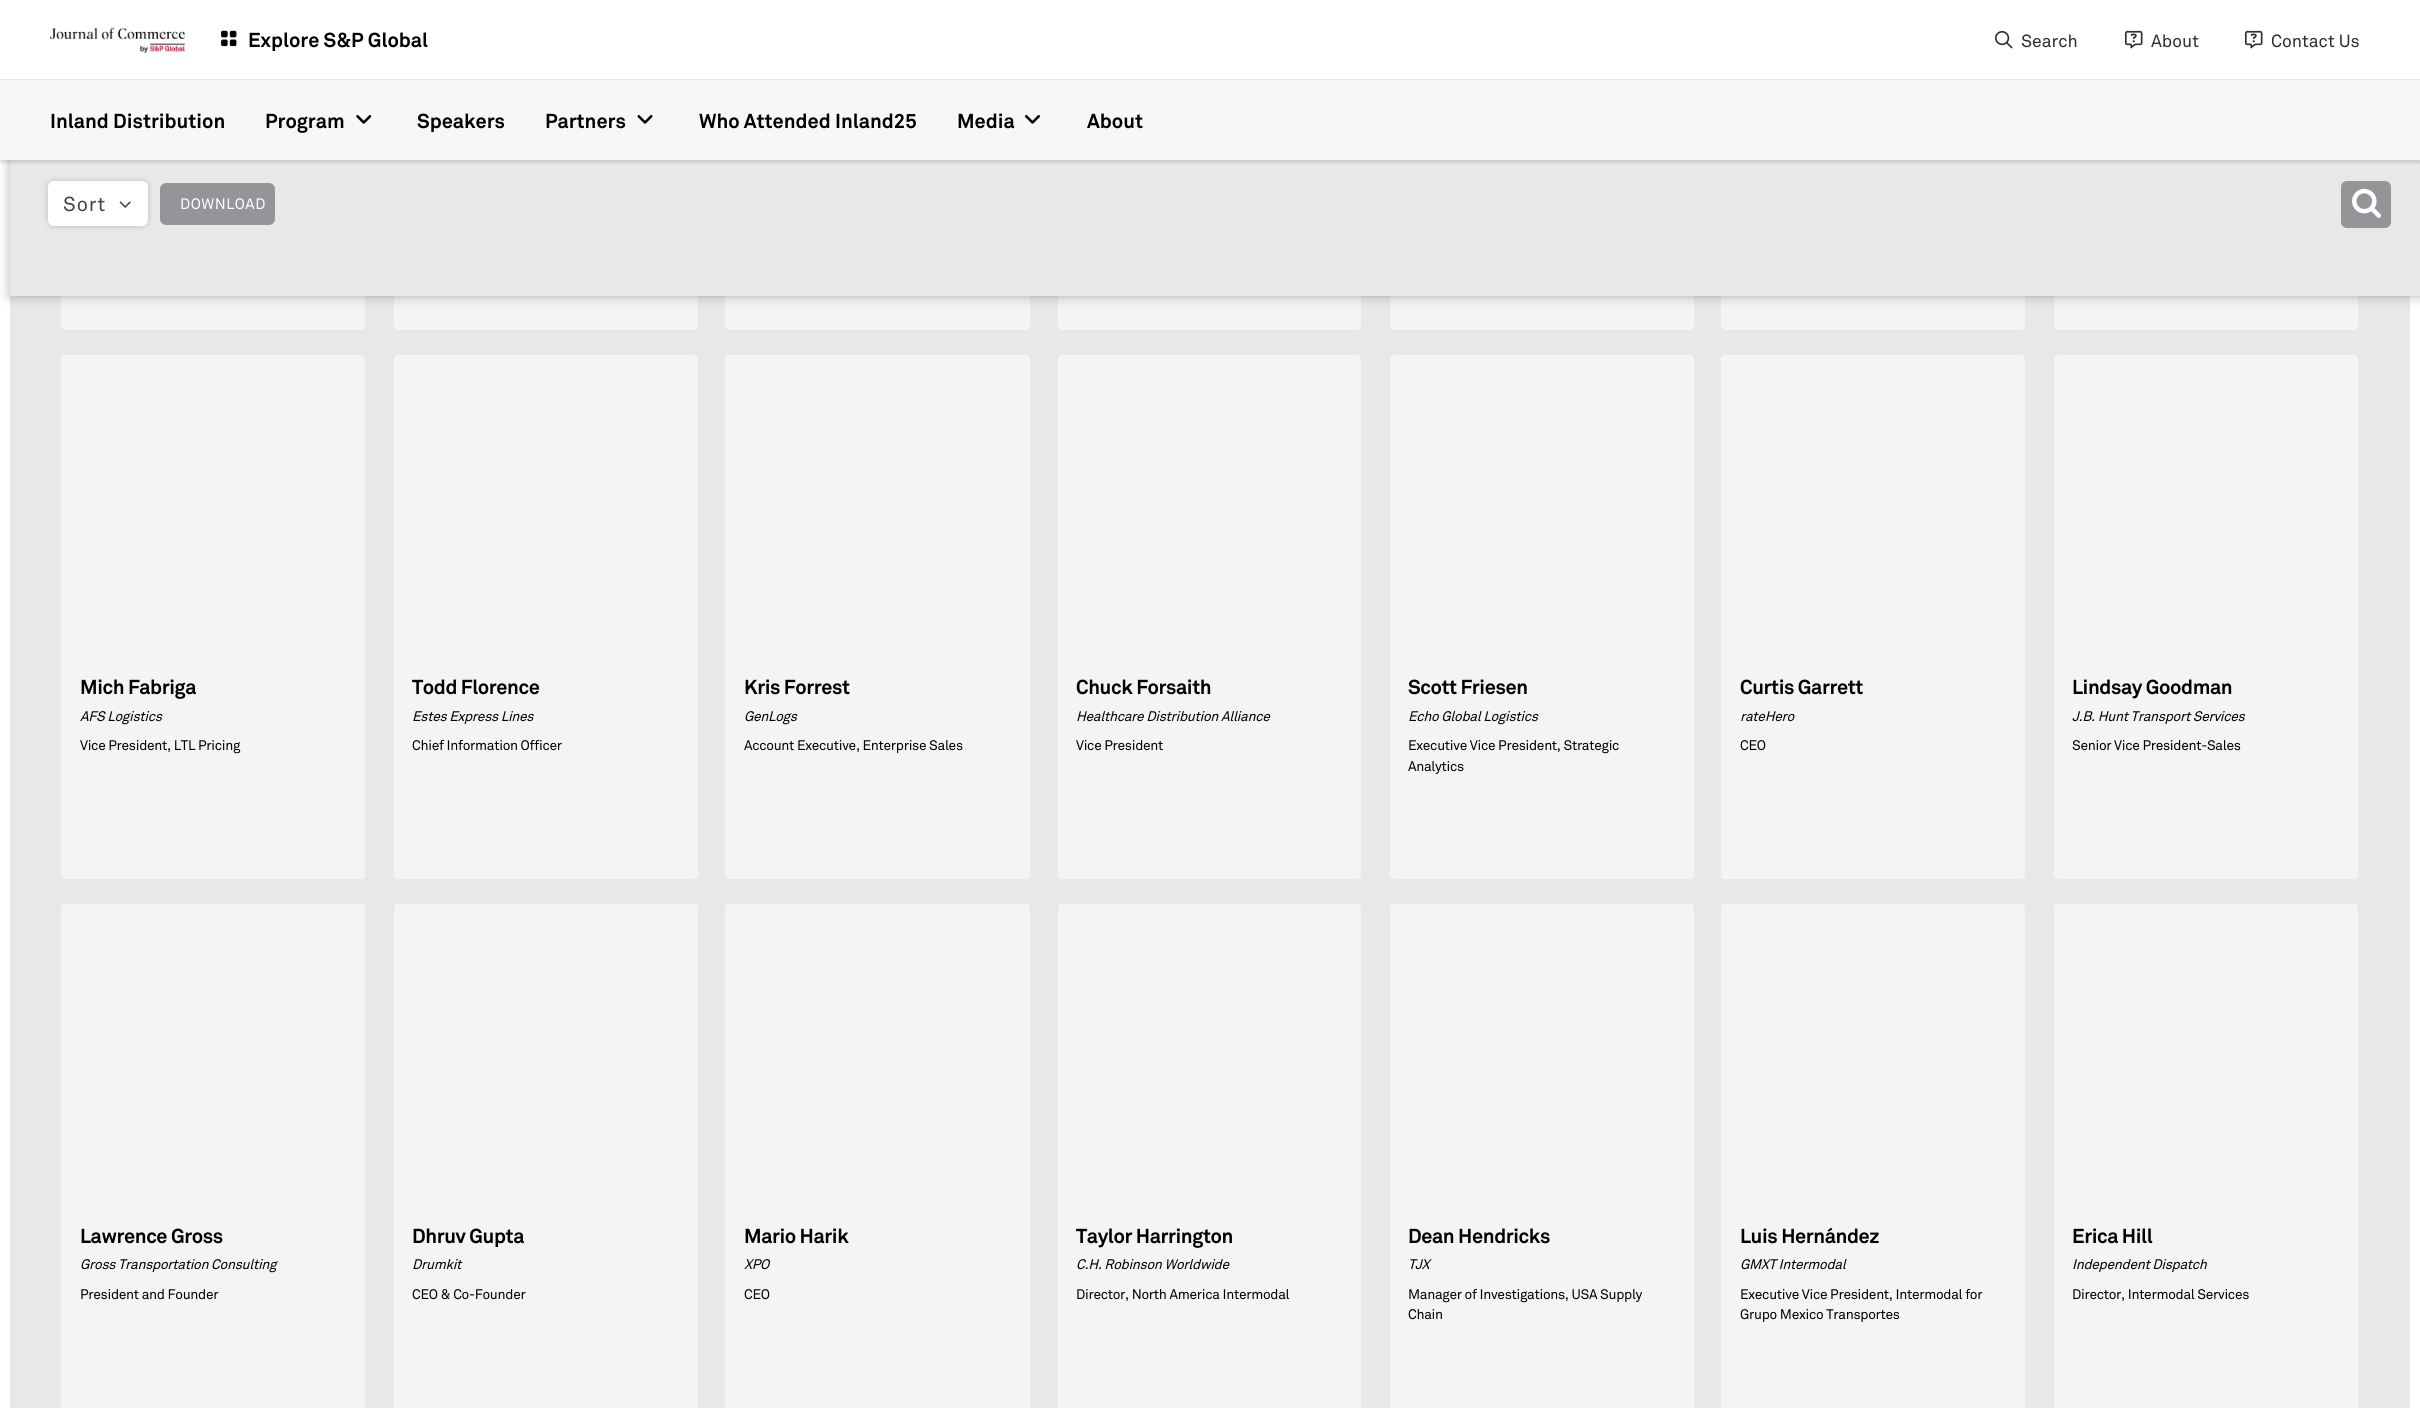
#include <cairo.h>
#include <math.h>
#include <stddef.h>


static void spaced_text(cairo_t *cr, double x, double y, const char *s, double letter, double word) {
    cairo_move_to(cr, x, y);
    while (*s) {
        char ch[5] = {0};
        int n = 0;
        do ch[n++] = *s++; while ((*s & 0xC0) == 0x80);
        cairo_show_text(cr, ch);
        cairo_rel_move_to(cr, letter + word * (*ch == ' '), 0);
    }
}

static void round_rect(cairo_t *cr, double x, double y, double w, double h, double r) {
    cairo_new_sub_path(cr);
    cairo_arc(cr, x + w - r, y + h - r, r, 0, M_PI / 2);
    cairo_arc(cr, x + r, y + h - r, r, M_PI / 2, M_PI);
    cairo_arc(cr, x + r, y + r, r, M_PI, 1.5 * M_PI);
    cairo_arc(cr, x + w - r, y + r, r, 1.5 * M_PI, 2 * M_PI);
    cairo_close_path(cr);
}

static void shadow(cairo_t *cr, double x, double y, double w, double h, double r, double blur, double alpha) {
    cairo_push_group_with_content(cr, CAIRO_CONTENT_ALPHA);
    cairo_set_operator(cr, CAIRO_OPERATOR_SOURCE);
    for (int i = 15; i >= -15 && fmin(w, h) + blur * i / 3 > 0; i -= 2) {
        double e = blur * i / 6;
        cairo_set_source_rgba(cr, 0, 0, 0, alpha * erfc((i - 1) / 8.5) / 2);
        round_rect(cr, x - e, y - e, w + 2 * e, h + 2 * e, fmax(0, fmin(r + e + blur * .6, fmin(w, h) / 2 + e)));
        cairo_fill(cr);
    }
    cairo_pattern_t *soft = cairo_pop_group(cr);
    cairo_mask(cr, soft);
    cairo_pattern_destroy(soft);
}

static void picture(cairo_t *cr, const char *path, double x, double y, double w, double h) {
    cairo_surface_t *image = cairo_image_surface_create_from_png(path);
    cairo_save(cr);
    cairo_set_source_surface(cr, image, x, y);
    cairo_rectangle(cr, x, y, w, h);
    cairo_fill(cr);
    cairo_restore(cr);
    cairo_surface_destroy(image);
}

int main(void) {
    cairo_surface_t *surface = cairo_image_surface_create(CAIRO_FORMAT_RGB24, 2420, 1408);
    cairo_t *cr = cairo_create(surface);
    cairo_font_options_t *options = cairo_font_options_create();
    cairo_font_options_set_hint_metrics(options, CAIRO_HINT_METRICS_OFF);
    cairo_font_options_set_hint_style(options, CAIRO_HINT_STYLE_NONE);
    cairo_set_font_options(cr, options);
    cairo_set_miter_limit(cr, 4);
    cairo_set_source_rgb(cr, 1, 1, 1);
    cairo_paint(cr);
    cairo_set_source_rgb(cr, 0.91, 0.91, 0.91);
    cairo_rectangle(cr, 10, 296, 2400, 1112);
    cairo_fill(cr);
    cairo_set_source_rgb(cr, 0.957, 0.957, 0.957);
    round_rect(cr, 61, -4, 304, 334, 4);
    cairo_fill(cr);
    round_rect(cr, 394, -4, 304, 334, 4);
    cairo_fill(cr);
    round_rect(cr, 725, -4, 305, 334, 4);
    cairo_fill(cr);
    round_rect(cr, 1058, -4, 303, 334, 4);
    cairo_fill(cr);
    round_rect(cr, 1390, -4, 304, 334, 4);
    cairo_fill(cr);
    round_rect(cr, 1721, -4, 304, 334, 4);
    cairo_fill(cr);
    round_rect(cr, 2054, -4, 304, 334, 4);
    cairo_fill(cr);
    cairo_set_source_rgb(cr, 1, 1, 1);
    cairo_rectangle(cr, 61, 0, 2297, 79);
    cairo_fill(cr);
    cairo_set_source_rgb(cr, 0.91, 0.91, 0.91);
    cairo_rectangle(cr, 0, 79, 2420, 1);
    cairo_fill(cr);
    picture(cr, "img1.png", 50, 27, 135, 26);
    picture(cr, "img2.png", 221, 30, 16, 17);
    cairo_select_font_face(cr, "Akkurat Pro", CAIRO_FONT_SLANT_NORMAL, CAIRO_FONT_WEIGHT_BOLD);
    cairo_set_font_size(cr, 20);
    cairo_set_source_rgb(cr, 0, 0, 0);
    cairo_move_to(cr, 248, 47);
    cairo_show_text(cr, "Explore S&P Global");
    picture(cr, "img3.png", 1995, 30, 18, 19);
    cairo_select_font_face(cr, "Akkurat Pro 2", CAIRO_FONT_SLANT_NORMAL, CAIRO_FONT_WEIGHT_NORMAL);
    cairo_set_font_size(cr, 17.5);
    cairo_set_source_rgb(cr, 0.18, 0.18, 0.18);
    cairo_move_to(cr, 2021, 47);
    cairo_show_text(cr, "Search");
    picture(cr, "img4.png", 2125, 30, 18, 19);
    cairo_move_to(cr, 2151, 47);
    cairo_show_text(cr, "About");
    picture(cr, "img4.png", 2245, 30, 18, 19);
    cairo_move_to(cr, 2271, 47);
    cairo_show_text(cr, "Contact Us");
    cairo_set_source_rgb(cr, 0, 0, 0);
    shadow(cr, 10, 154, 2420, 142, 0, 6, 0.3);
    cairo_set_source_rgb(cr, 0.91, 0.91, 0.91);
    cairo_rectangle(cr, 10, 160, 2410, 136);
    cairo_fill(cr);
    cairo_set_source_rgb(cr, 0, 0, 0);
    shadow(cr, 0, 83, 2420, 80, 0, 1, 0.12);
    cairo_set_source_rgb(cr, 0.965, 0.965, 0.965);
    cairo_rectangle(cr, 0, 80, 2420, 80);
    cairo_fill(cr);
    cairo_select_font_face(cr, "Akkurat Pro", CAIRO_FONT_SLANT_NORMAL, CAIRO_FONT_WEIGHT_BOLD);
    cairo_set_font_size(cr, 20);
    cairo_set_source_rgb(cr, 0, 0, 0);
    cairo_move_to(cr, 50, 128);
    cairo_show_text(cr, "Inland Distribution");
    cairo_move_to(cr, 265, 128);
    cairo_show_text(cr, "Program");
    picture(cr, "img5.png", 356, 115, 16, 9);
    cairo_move_to(cr, 417, 128);
    cairo_show_text(cr, "Speakers");
    cairo_move_to(cr, 545, 128);
    cairo_show_text(cr, "Partners");
    picture(cr, "img6.png", 637, 115, 16, 9);
    cairo_move_to(cr, 699, 128);
    cairo_show_text(cr, "Who Attended Inland25");
    cairo_move_to(cr, 957, 128);
    cairo_show_text(cr, "Media");
    picture(cr, "img7.png", 1025, 115, 15, 9);
    cairo_move_to(cr, 1087, 128);
    cairo_show_text(cr, "About");
    cairo_set_source_rgb(cr, 0, 0, 0);
    shadow(cr, 48, 181, 100, 45, 6, 3, 0.2);
    cairo_set_source_rgb(cr, 1, 1, 1);
    round_rect(cr, 48, 181, 100, 45, 6);
    cairo_fill(cr);
    cairo_select_font_face(cr, "Akkurat Pro", CAIRO_FONT_SLANT_NORMAL, CAIRO_FONT_WEIGHT_NORMAL);
    cairo_set_source_rgb(cr, 0.267, 0.267, 0.267);
    spaced_text(cr, 63, 211, "Sort", 1, 0);
    picture(cr, "img8.png", 119, 201, 12, 7);
    cairo_set_source_rgb(cr, 0.576, 0.584, 0.596);
    round_rect(cr, 160, 183, 115, 42, 6);
    cairo_fill(cr);
    cairo_set_font_size(cr, 15);
    cairo_set_source_rgb(cr, 1, 1, 1);
    spaced_text(cr, 180, 209, "DOWNLOAD", 0.5, 0);
    cairo_set_source_rgb(cr, 0.576, 0.584, 0.596);
    round_rect(cr, 2341, 181, 50, 47, 6);
    cairo_fill(cr);
    picture(cr, "img9.png", 2352, 188, 29, 30);
    cairo_set_source_rgb(cr, 0.957, 0.957, 0.957);
    round_rect(cr, 61, 355, 304, 524, 4);
    cairo_fill(cr);
    cairo_select_font_face(cr, "Akkurat Pro", CAIRO_FONT_SLANT_NORMAL, CAIRO_FONT_WEIGHT_BOLD);
    cairo_set_font_size(cr, 20);
    cairo_set_source_rgb(cr, 0, 0, 0);
    spaced_text(cr, 80, 694, "Mich Fabriga", -0.4, 0);
    cairo_select_font_face(cr, "Akkurat Pro", CAIRO_FONT_SLANT_ITALIC, CAIRO_FONT_WEIGHT_NORMAL);
    cairo_set_font_size(cr, 13.75);
    spaced_text(cr, 80, 721, "AFS Logistics", -0.3, 0);
    cairo_select_font_face(cr, "Akkurat Pro", CAIRO_FONT_SLANT_NORMAL, CAIRO_FONT_WEIGHT_NORMAL);
    spaced_text(cr, 80, 750, "Vice President, LTL Pricing", -0.3, 0);
    cairo_set_source_rgb(cr, 0.957, 0.957, 0.957);
    round_rect(cr, 394, 355, 304, 524, 4);
    cairo_fill(cr);
    cairo_select_font_face(cr, "Akkurat Pro", CAIRO_FONT_SLANT_NORMAL, CAIRO_FONT_WEIGHT_BOLD);
    cairo_set_font_size(cr, 20);
    cairo_set_source_rgb(cr, 0, 0, 0);
    spaced_text(cr, 412, 694, "Todd Florence", -0.4, 0);
    cairo_select_font_face(cr, "Akkurat Pro", CAIRO_FONT_SLANT_ITALIC, CAIRO_FONT_WEIGHT_NORMAL);
    cairo_set_font_size(cr, 13.75);
    spaced_text(cr, 412, 721, "Estes Express Lines", -0.3, 0);
    cairo_select_font_face(cr, "Akkurat Pro", CAIRO_FONT_SLANT_NORMAL, CAIRO_FONT_WEIGHT_NORMAL);
    spaced_text(cr, 412, 750, "Chief Information Officer", -0.3, 0);
    cairo_set_source_rgb(cr, 0.957, 0.957, 0.957);
    round_rect(cr, 725, 355, 305, 524, 4);
    cairo_fill(cr);
    cairo_select_font_face(cr, "Akkurat Pro", CAIRO_FONT_SLANT_NORMAL, CAIRO_FONT_WEIGHT_BOLD);
    cairo_set_font_size(cr, 20);
    cairo_set_source_rgb(cr, 0, 0, 0);
    spaced_text(cr, 744, 694, "Kris Forrest", -0.4, 0);
    cairo_select_font_face(cr, "Akkurat Pro", CAIRO_FONT_SLANT_ITALIC, CAIRO_FONT_WEIGHT_NORMAL);
    cairo_set_font_size(cr, 13.75);
    spaced_text(cr, 744, 721, "GenLogs", -0.3, 0);
    cairo_select_font_face(cr, "Akkurat Pro", CAIRO_FONT_SLANT_NORMAL, CAIRO_FONT_WEIGHT_NORMAL);
    spaced_text(cr, 744, 750, "Account Executive, Enterprise Sales", -0.3, 0);
    cairo_set_source_rgb(cr, 0.957, 0.957, 0.957);
    round_rect(cr, 1058, 355, 303, 524, 4);
    cairo_fill(cr);
    cairo_select_font_face(cr, "Akkurat Pro", CAIRO_FONT_SLANT_NORMAL, CAIRO_FONT_WEIGHT_BOLD);
    cairo_set_font_size(cr, 20);
    cairo_set_source_rgb(cr, 0, 0, 0);
    spaced_text(cr, 1076, 694, "Chuck Forsaith", -0.4, 0);
    cairo_select_font_face(cr, "Akkurat Pro", CAIRO_FONT_SLANT_ITALIC, CAIRO_FONT_WEIGHT_NORMAL);
    cairo_set_font_size(cr, 13.75);
    spaced_text(cr, 1076, 721, "Healthcare Distribution Alliance", -0.3, 0);
    cairo_select_font_face(cr, "Akkurat Pro", CAIRO_FONT_SLANT_NORMAL, CAIRO_FONT_WEIGHT_NORMAL);
    spaced_text(cr, 1076, 750, "Vice President", -0.3, 0);
    cairo_set_source_rgb(cr, 0.957, 0.957, 0.957);
    round_rect(cr, 1390, 355, 304, 524, 4);
    cairo_fill(cr);
    cairo_select_font_face(cr, "Akkurat Pro", CAIRO_FONT_SLANT_NORMAL, CAIRO_FONT_WEIGHT_BOLD);
    cairo_set_font_size(cr, 20);
    cairo_set_source_rgb(cr, 0, 0, 0);
    spaced_text(cr, 1408, 694, "Scott Friesen", -0.4, 0);
    cairo_select_font_face(cr, "Akkurat Pro", CAIRO_FONT_SLANT_ITALIC, CAIRO_FONT_WEIGHT_NORMAL);
    cairo_set_font_size(cr, 13.75);
    spaced_text(cr, 1408, 721, "Echo Global Logistics", -0.3, 0);
    cairo_select_font_face(cr, "Akkurat Pro", CAIRO_FONT_SLANT_NORMAL, CAIRO_FONT_WEIGHT_NORMAL);
    spaced_text(cr, 1408, 750, "Executive Vice President, Strategic", -0.3, 0);
    spaced_text(cr, 1408, 771, "Analytics", -0.3, 0);
    cairo_set_source_rgb(cr, 0.957, 0.957, 0.957);
    round_rect(cr, 1721, 355, 304, 524, 4);
    cairo_fill(cr);
    cairo_select_font_face(cr, "Akkurat Pro", CAIRO_FONT_SLANT_NORMAL, CAIRO_FONT_WEIGHT_BOLD);
    cairo_set_font_size(cr, 20);
    cairo_set_source_rgb(cr, 0, 0, 0);
    spaced_text(cr, 1740, 694, "Curtis Garrett", -0.4, 0);
    cairo_select_font_face(cr, "Akkurat Pro", CAIRO_FONT_SLANT_ITALIC, CAIRO_FONT_WEIGHT_NORMAL);
    cairo_set_font_size(cr, 13.75);
    spaced_text(cr, 1740, 721, "rateHero", -0.3, 0);
    cairo_select_font_face(cr, "Akkurat Pro", CAIRO_FONT_SLANT_NORMAL, CAIRO_FONT_WEIGHT_NORMAL);
    spaced_text(cr, 1740, 750, "CEO", -0.3, 0);
    cairo_set_source_rgb(cr, 0.957, 0.957, 0.957);
    round_rect(cr, 2054, 355, 304, 524, 4);
    cairo_fill(cr);
    cairo_select_font_face(cr, "Akkurat Pro", CAIRO_FONT_SLANT_NORMAL, CAIRO_FONT_WEIGHT_BOLD);
    cairo_set_font_size(cr, 20);
    cairo_set_source_rgb(cr, 0, 0, 0);
    spaced_text(cr, 2072, 694, "Lindsay Goodman", -0.4, 0);
    cairo_select_font_face(cr, "Akkurat Pro", CAIRO_FONT_SLANT_ITALIC, CAIRO_FONT_WEIGHT_NORMAL);
    cairo_set_font_size(cr, 13.75);
    spaced_text(cr, 2072, 721, "J.B. Hunt Transport Services", -0.3, 0);
    cairo_select_font_face(cr, "Akkurat Pro", CAIRO_FONT_SLANT_NORMAL, CAIRO_FONT_WEIGHT_NORMAL);
    spaced_text(cr, 2072, 750, "Senior Vice President-Sales", -0.3, 0);
    cairo_set_source_rgb(cr, 0.957, 0.957, 0.957);
    round_rect(cr, 61, 904, 304, 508, 4);
    cairo_fill(cr);
    cairo_select_font_face(cr, "Akkurat Pro", CAIRO_FONT_SLANT_NORMAL, CAIRO_FONT_WEIGHT_BOLD);
    cairo_set_font_size(cr, 20);
    cairo_set_source_rgb(cr, 0, 0, 0);
    spaced_text(cr, 80, 1243, "Lawrence Gross", -0.4, 0);
    cairo_select_font_face(cr, "Akkurat Pro", CAIRO_FONT_SLANT_ITALIC, CAIRO_FONT_WEIGHT_NORMAL);
    cairo_set_font_size(cr, 13.75);
    spaced_text(cr, 80, 1269, "Gross Transportation Consulting", -0.3, 0);
    cairo_select_font_face(cr, "Akkurat Pro", CAIRO_FONT_SLANT_NORMAL, CAIRO_FONT_WEIGHT_NORMAL);
    spaced_text(cr, 80, 1299, "President and Founder", -0.3, 0);
    cairo_set_source_rgb(cr, 0.957, 0.957, 0.957);
    round_rect(cr, 394, 904, 304, 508, 4);
    cairo_fill(cr);
    cairo_select_font_face(cr, "Akkurat Pro", CAIRO_FONT_SLANT_NORMAL, CAIRO_FONT_WEIGHT_BOLD);
    cairo_set_font_size(cr, 20);
    cairo_set_source_rgb(cr, 0, 0, 0);
    spaced_text(cr, 412, 1243, "Dhruv Gupta", -0.4, 0);
    cairo_select_font_face(cr, "Akkurat Pro", CAIRO_FONT_SLANT_ITALIC, CAIRO_FONT_WEIGHT_NORMAL);
    cairo_set_font_size(cr, 13.75);
    spaced_text(cr, 412, 1269, "Drumkit", -0.3, 0);
    cairo_select_font_face(cr, "Akkurat Pro", CAIRO_FONT_SLANT_NORMAL, CAIRO_FONT_WEIGHT_NORMAL);
    spaced_text(cr, 412, 1299, "CEO & Co-Founder", -0.3, 0);
    cairo_set_source_rgb(cr, 0.957, 0.957, 0.957);
    round_rect(cr, 725, 904, 305, 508, 4);
    cairo_fill(cr);
    cairo_select_font_face(cr, "Akkurat Pro", CAIRO_FONT_SLANT_NORMAL, CAIRO_FONT_WEIGHT_BOLD);
    cairo_set_font_size(cr, 20);
    cairo_set_source_rgb(cr, 0, 0, 0);
    spaced_text(cr, 744, 1243, "Mario Harik", -0.4, 0);
    cairo_select_font_face(cr, "Akkurat Pro", CAIRO_FONT_SLANT_ITALIC, CAIRO_FONT_WEIGHT_NORMAL);
    cairo_set_font_size(cr, 13.75);
    spaced_text(cr, 744, 1269, "XPO", -0.3, 0);
    cairo_select_font_face(cr, "Akkurat Pro", CAIRO_FONT_SLANT_NORMAL, CAIRO_FONT_WEIGHT_NORMAL);
    spaced_text(cr, 744, 1299, "CEO", -0.3, 0);
    cairo_set_source_rgb(cr, 0.957, 0.957, 0.957);
    round_rect(cr, 1058, 904, 303, 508, 4);
    cairo_fill(cr);
    cairo_select_font_face(cr, "Akkurat Pro", CAIRO_FONT_SLANT_NORMAL, CAIRO_FONT_WEIGHT_BOLD);
    cairo_set_font_size(cr, 20);
    cairo_set_source_rgb(cr, 0, 0, 0);
    spaced_text(cr, 1076, 1243, "Taylor Harrington", -0.4, 0);
    cairo_select_font_face(cr, "Akkurat Pro", CAIRO_FONT_SLANT_ITALIC, CAIRO_FONT_WEIGHT_NORMAL);
    cairo_set_font_size(cr, 13.75);
    spaced_text(cr, 1076, 1269, "C.H. Robinson Worldwide", -0.3, 0);
    cairo_select_font_face(cr, "Akkurat Pro", CAIRO_FONT_SLANT_NORMAL, CAIRO_FONT_WEIGHT_NORMAL);
    spaced_text(cr, 1076, 1299, "Director, North America Intermodal", -0.3, 0);
    cairo_set_source_rgb(cr, 0.957, 0.957, 0.957);
    round_rect(cr, 1390, 904, 304, 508, 4);
    cairo_fill(cr);
    cairo_select_font_face(cr, "Akkurat Pro", CAIRO_FONT_SLANT_NORMAL, CAIRO_FONT_WEIGHT_BOLD);
    cairo_set_font_size(cr, 20);
    cairo_set_source_rgb(cr, 0, 0, 0);
    spaced_text(cr, 1408, 1243, "Dean Hendricks", -0.4, 0);
    cairo_select_font_face(cr, "Akkurat Pro", CAIRO_FONT_SLANT_ITALIC, CAIRO_FONT_WEIGHT_NORMAL);
    cairo_set_font_size(cr, 13.75);
    spaced_text(cr, 1408, 1269, "TJX", -0.3, 0);
    cairo_select_font_face(cr, "Akkurat Pro", CAIRO_FONT_SLANT_NORMAL, CAIRO_FONT_WEIGHT_NORMAL);
    spaced_text(cr, 1408, 1299, "Manager of Investigations, USA Supply", -0.3, 0);
    spaced_text(cr, 1408, 1319, "Chain", -0.3, 0);
    cairo_set_source_rgb(cr, 0.957, 0.957, 0.957);
    round_rect(cr, 1721, 904, 304, 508, 4);
    cairo_fill(cr);
    cairo_select_font_face(cr, "Akkurat Pro", CAIRO_FONT_SLANT_NORMAL, CAIRO_FONT_WEIGHT_BOLD);
    cairo_set_font_size(cr, 20);
    cairo_set_source_rgb(cr, 0, 0, 0);
    spaced_text(cr, 1740, 1243, "Luis Hernández", -0.4, 0);
    cairo_select_font_face(cr, "Akkurat Pro", CAIRO_FONT_SLANT_ITALIC, CAIRO_FONT_WEIGHT_NORMAL);
    cairo_set_font_size(cr, 13.75);
    spaced_text(cr, 1740, 1269, "GMXT Intermodal", -0.3, 0);
    cairo_select_font_face(cr, "Akkurat Pro", CAIRO_FONT_SLANT_NORMAL, CAIRO_FONT_WEIGHT_NORMAL);
    spaced_text(cr, 1740, 1299, "Executive Vice President, Intermodal for", -0.3, 0);
    spaced_text(cr, 1740, 1319, "Grupo Mexico Transportes", -0.3, 0);
    cairo_set_source_rgb(cr, 0.957, 0.957, 0.957);
    round_rect(cr, 2054, 904, 304, 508, 4);
    cairo_fill(cr);
    cairo_select_font_face(cr, "Akkurat Pro", CAIRO_FONT_SLANT_NORMAL, CAIRO_FONT_WEIGHT_BOLD);
    cairo_set_font_size(cr, 20);
    cairo_set_source_rgb(cr, 0, 0, 0);
    spaced_text(cr, 2072, 1243, "Erica Hill", -0.4, 0);
    cairo_select_font_face(cr, "Akkurat Pro", CAIRO_FONT_SLANT_ITALIC, CAIRO_FONT_WEIGHT_NORMAL);
    cairo_set_font_size(cr, 13.75);
    spaced_text(cr, 2072, 1269, "Independent Dispatch", -0.3, 0);
    cairo_select_font_face(cr, "Akkurat Pro", CAIRO_FONT_SLANT_NORMAL, CAIRO_FONT_WEIGHT_NORMAL);
    spaced_text(cr, 2072, 1299, "Director, Intermodal Services", -0.3, 0);
    cairo_surface_write_to_png(surface, "page.png");
    cairo_font_options_destroy(options);
    cairo_destroy(cr);
    cairo_surface_destroy(surface);
    return 0;
}
